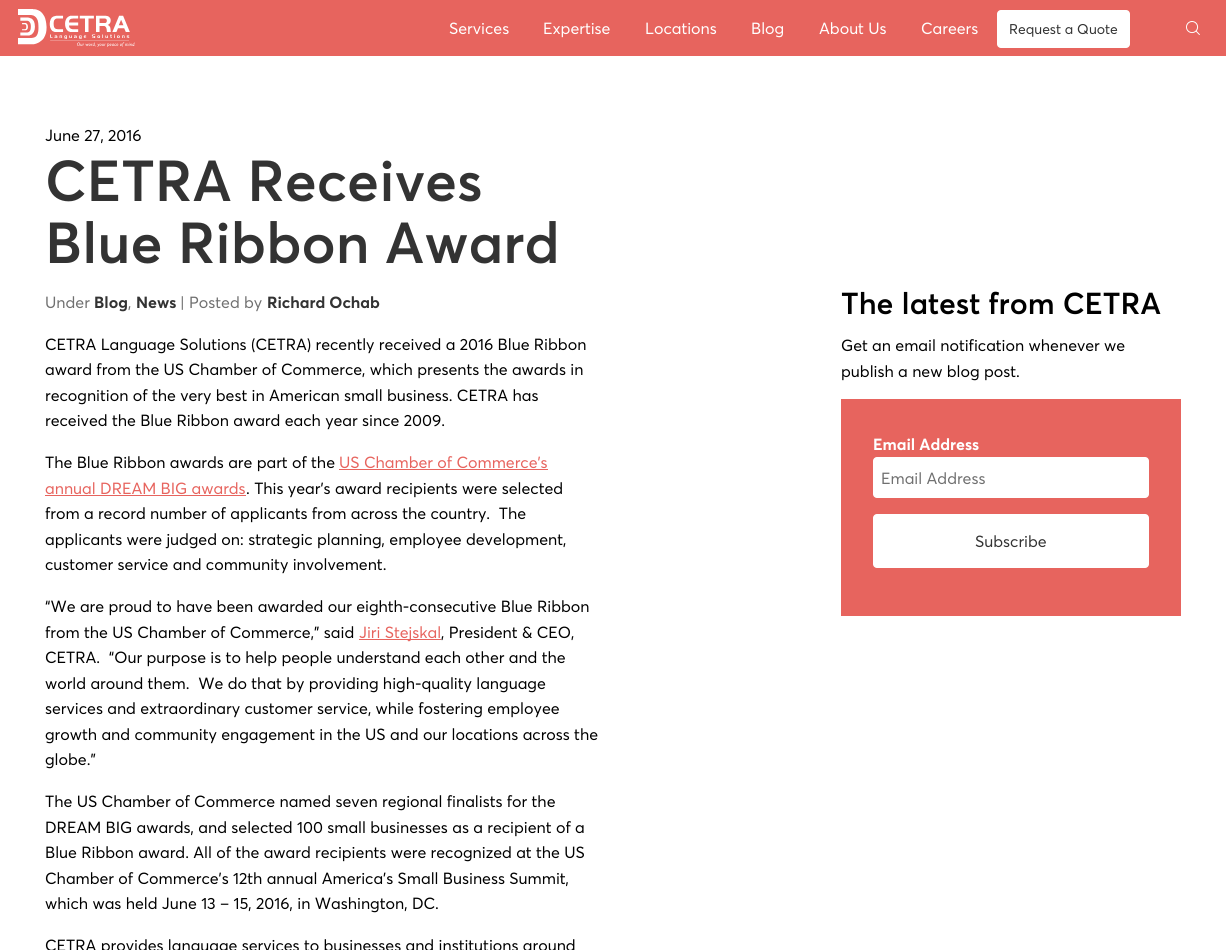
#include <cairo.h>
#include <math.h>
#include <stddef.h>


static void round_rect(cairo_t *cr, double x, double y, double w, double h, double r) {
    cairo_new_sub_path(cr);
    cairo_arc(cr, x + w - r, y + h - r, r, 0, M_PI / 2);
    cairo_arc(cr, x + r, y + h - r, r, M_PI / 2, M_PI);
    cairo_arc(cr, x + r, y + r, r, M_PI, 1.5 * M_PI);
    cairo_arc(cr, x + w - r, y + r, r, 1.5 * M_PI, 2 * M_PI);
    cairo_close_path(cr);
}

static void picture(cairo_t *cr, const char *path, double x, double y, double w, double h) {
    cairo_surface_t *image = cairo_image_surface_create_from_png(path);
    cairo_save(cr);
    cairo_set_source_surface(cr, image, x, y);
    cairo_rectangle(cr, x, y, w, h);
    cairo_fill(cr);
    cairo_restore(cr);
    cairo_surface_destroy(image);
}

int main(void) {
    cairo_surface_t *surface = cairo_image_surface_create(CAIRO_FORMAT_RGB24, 1226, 950);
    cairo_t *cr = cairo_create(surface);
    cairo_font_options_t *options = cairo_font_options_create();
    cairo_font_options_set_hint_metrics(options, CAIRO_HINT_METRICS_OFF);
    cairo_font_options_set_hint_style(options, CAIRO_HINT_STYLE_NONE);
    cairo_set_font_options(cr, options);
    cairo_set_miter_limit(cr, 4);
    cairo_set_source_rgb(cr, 1, 1, 1);
    cairo_paint(cr);
    cairo_set_source_rgb(cr, 0.906, 0.392, 0.369);
    cairo_rectangle(cr, 0, 0, 1226, 56);
    cairo_fill(cr);
    picture(cr, "img1.png", 18, 9, 117, 38);
    cairo_select_font_face(cr, "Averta", CAIRO_FONT_SLANT_NORMAL, CAIRO_FONT_WEIGHT_NORMAL);
    cairo_set_font_size(cr, 16);
    cairo_set_source_rgb(cr, 1, 1, 1);
    cairo_move_to(cr, 449, 34);
    cairo_show_text(cr, "Services");
    cairo_move_to(cr, 543, 34);
    cairo_show_text(cr, "Expertise");
    cairo_move_to(cr, 645, 34);
    cairo_show_text(cr, "Locations");
    cairo_move_to(cr, 751, 34);
    cairo_show_text(cr, "Blog");
    cairo_move_to(cr, 819, 34);
    cairo_show_text(cr, "About Us");
    cairo_move_to(cr, 921, 34);
    cairo_show_text(cr, "Careers");
    round_rect(cr, 997, 10, 133, 38, 4);
    cairo_fill(cr);
    cairo_set_font_size(cr, 14);
    cairo_set_source_rgb(cr, 0.2, 0.2, 0.2);
    cairo_move_to(cr, 1009, 34);
    cairo_show_text(cr, "Request a Quote");
    picture(cr, "img2.png", 1186, 21, 14, 14);
    cairo_set_font_size(cr, 16);
    cairo_set_source_rgb(cr, 0, 0, 0);
    cairo_move_to(cr, 45, 141);
    cairo_show_text(cr, "June 27, 2016");
    cairo_select_font_face(cr, "Averta SemiBold", CAIRO_FONT_SLANT_NORMAL, CAIRO_FONT_WEIGHT_NORMAL);
    cairo_set_font_size(cr, 57);
    cairo_set_source_rgb(cr, 0.2, 0.2, 0.2);
    cairo_move_to(cr, 45, 201);
    cairo_show_text(cr, "CETRA Receives");
    cairo_move_to(cr, 45, 263);
    cairo_show_text(cr, "Blue Ribbon Award");
    cairo_select_font_face(cr, "Averta", CAIRO_FONT_SLANT_NORMAL, CAIRO_FONT_WEIGHT_NORMAL);
    cairo_set_font_size(cr, 16);
    cairo_set_source_rgb(cr, 0.439, 0.439, 0.439);
    cairo_move_to(cr, 45, 308);
    cairo_show_text(cr, "Under");
    cairo_select_font_face(cr, "Averta", CAIRO_FONT_SLANT_NORMAL, CAIRO_FONT_WEIGHT_BOLD);
    cairo_set_source_rgb(cr, 0.2, 0.2, 0.2);
    cairo_move_to(cr, 94, 308);
    cairo_show_text(cr, "Blog");
    cairo_select_font_face(cr, "Averta", CAIRO_FONT_SLANT_NORMAL, CAIRO_FONT_WEIGHT_NORMAL);
    cairo_set_source_rgb(cr, 0.439, 0.439, 0.439);
    cairo_move_to(cr, 128, 308);
    cairo_show_text(cr, ",");
    cairo_select_font_face(cr, "Averta", CAIRO_FONT_SLANT_NORMAL, CAIRO_FONT_WEIGHT_BOLD);
    cairo_set_source_rgb(cr, 0.2, 0.2, 0.2);
    cairo_move_to(cr, 136, 308);
    cairo_show_text(cr, "News");
    cairo_select_font_face(cr, "Averta", CAIRO_FONT_SLANT_NORMAL, CAIRO_FONT_WEIGHT_NORMAL);
    cairo_set_source_rgb(cr, 0.439, 0.439, 0.439);
    cairo_move_to(cr, 180, 308);
    cairo_show_text(cr, "| Posted by");
    cairo_select_font_face(cr, "Averta", CAIRO_FONT_SLANT_NORMAL, CAIRO_FONT_WEIGHT_BOLD);
    cairo_set_source_rgb(cr, 0.2, 0.2, 0.2);
    cairo_move_to(cr, 267, 308);
    cairo_show_text(cr, "Richard Ochab");
    cairo_select_font_face(cr, "Averta", CAIRO_FONT_SLANT_NORMAL, CAIRO_FONT_WEIGHT_NORMAL);
    cairo_set_source_rgb(cr, 0, 0, 0);
    cairo_move_to(cr, 45, 350);
    cairo_show_text(cr, "CETRA Language Solutions (CETRA) recently received a 2016 Blue Ribbon");
    cairo_move_to(cr, 45, 375);
    cairo_show_text(cr, "award from the US Chamber of Commerce, which presents the awards in");
    cairo_move_to(cr, 45, 401);
    cairo_show_text(cr, "recognition of the very best in American small business. CETRA has");
    cairo_move_to(cr, 45, 426);
    cairo_show_text(cr, "received the Blue Ribbon award each year since 2009.");
    cairo_move_to(cr, 45, 468);
    cairo_show_text(cr, "The Blue Ribbon awards are part of the");
    cairo_set_source_rgb(cr, 0.906, 0.392, 0.369);
    cairo_move_to(cr, 339, 468);
    cairo_show_text(cr, "US Chamber of Commerce’s");
    cairo_rectangle(cr, 339, 469, 209, 1);
    cairo_fill(cr);
    cairo_move_to(cr, 45, 494);
    cairo_show_text(cr, "annual DREAM BIG awards");
    cairo_rectangle(cr, 45, 495, 201, 1);
    cairo_fill(cr);
    cairo_set_source_rgb(cr, 0, 0, 0);
    cairo_move_to(cr, 246, 494);
    cairo_show_text(cr, ". This year’s award recipients were selected");
    cairo_move_to(cr, 45, 519);
    cairo_show_text(cr, "from a record number of applicants from across the country.  The");
    cairo_move_to(cr, 45, 545);
    cairo_show_text(cr, "applicants were judged on: strategic planning, employee development,");
    cairo_move_to(cr, 45, 570);
    cairo_show_text(cr, "customer service and community involvement.");
    cairo_move_to(cr, 45, 612);
    cairo_show_text(cr, "“We are proud to have been awarded our eighth-consecutive Blue Ribbon");
    cairo_move_to(cr, 45, 638);
    cairo_show_text(cr, "from the US Chamber of Commerce,” said");
    cairo_set_source_rgb(cr, 0.906, 0.392, 0.369);
    cairo_rectangle(cr, 359, 639, 82, 1);
    cairo_fill(cr);
    cairo_move_to(cr, 359, 638);
    cairo_show_text(cr, "Jiri Stejskal");
    cairo_set_source_rgb(cr, 0, 0, 0);
    cairo_move_to(cr, 441, 638);
    cairo_show_text(cr, ", President & CEO,");
    cairo_move_to(cr, 45, 663);
    cairo_show_text(cr, "CETRA.  “Our purpose is to help people understand each other and the");
    cairo_move_to(cr, 45, 689);
    cairo_show_text(cr, "world around them.  We do that by providing high-quality language");
    cairo_move_to(cr, 45, 714);
    cairo_show_text(cr, "services and extraordinary customer service, while fostering employee");
    cairo_move_to(cr, 45, 740);
    cairo_show_text(cr, "growth and community engagement in the US and our locations across the");
    cairo_move_to(cr, 45, 765);
    cairo_show_text(cr, "globe.”");
    cairo_move_to(cr, 45, 807);
    cairo_show_text(cr, "The US Chamber of Commerce named seven regional finalists for the");
    cairo_move_to(cr, 45, 833);
    cairo_show_text(cr, "DREAM BIG awards, and selected 100 small businesses as a recipient of a");
    cairo_move_to(cr, 45, 858);
    cairo_show_text(cr, "Blue Ribbon award. All of the award recipients were recognized at the US");
    cairo_move_to(cr, 45, 884);
    cairo_show_text(cr, "Chamber of Commerce’s 12th annual America’s Small Business Summit,");
    cairo_move_to(cr, 45, 909);
    cairo_show_text(cr, "which was held June 13 – 15, 2016, in Washington, DC.");
    cairo_move_to(cr, 45, 951);
    cairo_show_text(cr, "CETRA provides language services to businesses and institutions around");
    cairo_select_font_face(cr, "Averta SemiBold", CAIRO_FONT_SLANT_NORMAL, CAIRO_FONT_WEIGHT_NORMAL);
    cairo_set_font_size(cr, 30);
    cairo_move_to(cr, 841, 314);
    cairo_show_text(cr, "The latest from CETRA");
    cairo_select_font_face(cr, "Averta", CAIRO_FONT_SLANT_NORMAL, CAIRO_FONT_WEIGHT_NORMAL);
    cairo_set_font_size(cr, 16);
    cairo_move_to(cr, 841, 351);
    cairo_show_text(cr, "Get an email notification whenever we");
    cairo_move_to(cr, 841, 377);
    cairo_show_text(cr, "publish a new blog post.");
    cairo_set_source_rgb(cr, 0.906, 0.392, 0.369);
    cairo_rectangle(cr, 841, 399, 340, 217);
    cairo_fill(cr);
    cairo_select_font_face(cr, "Averta", CAIRO_FONT_SLANT_NORMAL, CAIRO_FONT_WEIGHT_BOLD);
    cairo_set_source_rgb(cr, 1, 1, 1);
    cairo_move_to(cr, 873, 450);
    cairo_show_text(cr, "Email Address");
    round_rect(cr, 873, 457, 276, 41, 4);
    cairo_fill(cr);
    cairo_select_font_face(cr, "Averta", CAIRO_FONT_SLANT_NORMAL, CAIRO_FONT_WEIGHT_NORMAL);
    cairo_set_source_rgb(cr, 0.439, 0.439, 0.439);
    cairo_move_to(cr, 881, 484);
    cairo_show_text(cr, "Email Address");
    cairo_set_source_rgb(cr, 1, 1, 1);
    round_rect(cr, 873, 514, 276, 54, 4);
    cairo_fill(cr);
    cairo_set_source_rgb(cr, 0.2, 0.2, 0.2);
    cairo_move_to(cr, 975, 547);
    cairo_show_text(cr, "Subscribe");
    cairo_surface_write_to_png(surface, "page.png");
    cairo_font_options_destroy(options);
    cairo_destroy(cr);
    cairo_surface_destroy(surface);
    return 0;
}
